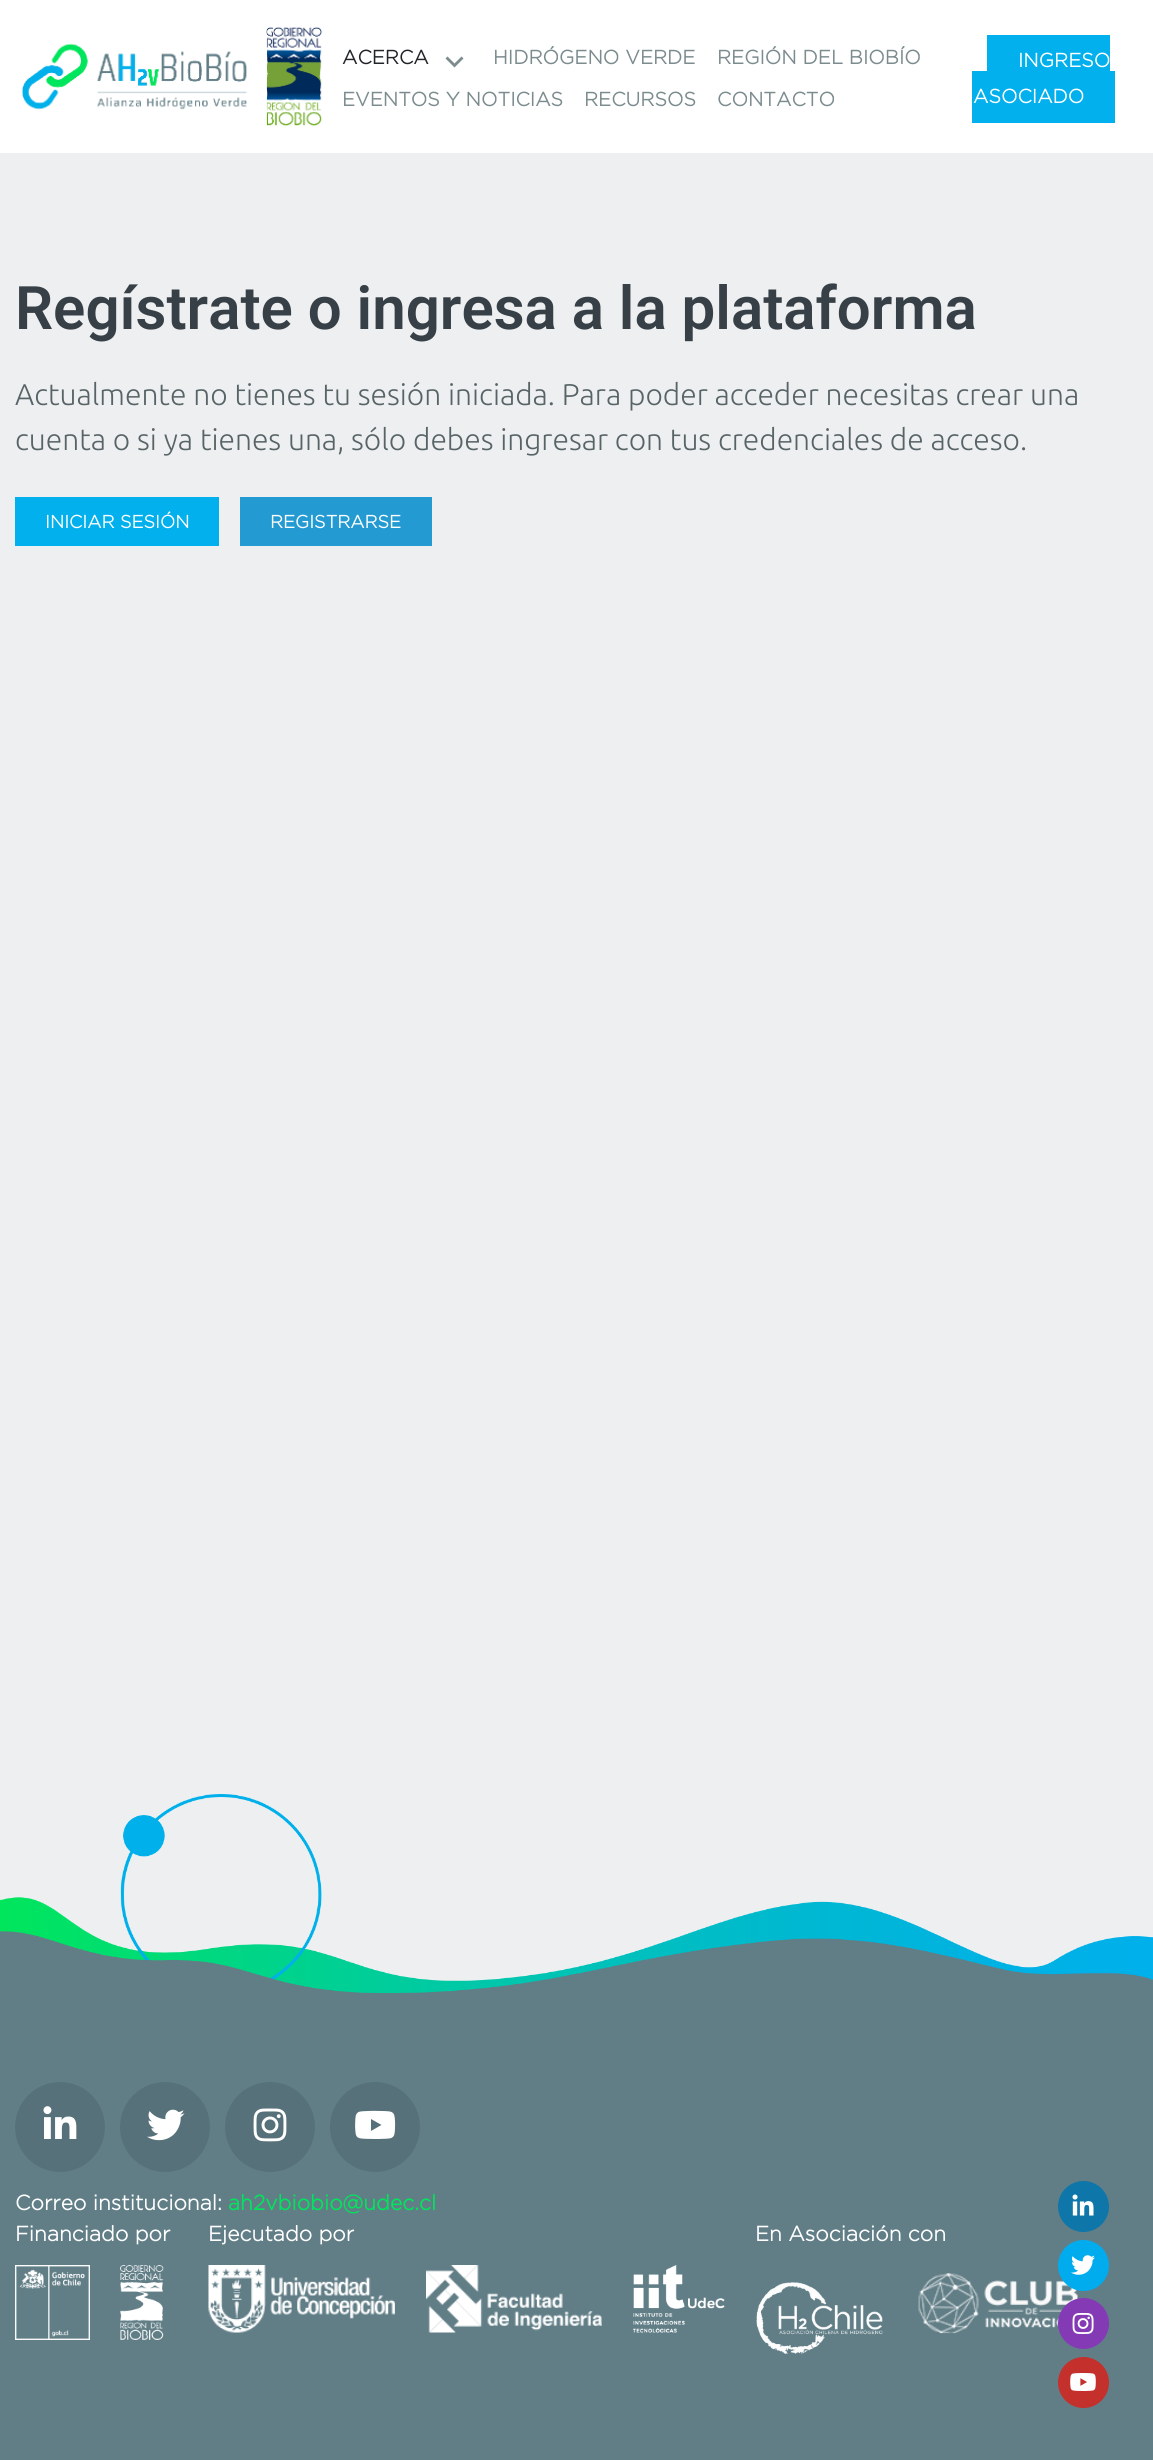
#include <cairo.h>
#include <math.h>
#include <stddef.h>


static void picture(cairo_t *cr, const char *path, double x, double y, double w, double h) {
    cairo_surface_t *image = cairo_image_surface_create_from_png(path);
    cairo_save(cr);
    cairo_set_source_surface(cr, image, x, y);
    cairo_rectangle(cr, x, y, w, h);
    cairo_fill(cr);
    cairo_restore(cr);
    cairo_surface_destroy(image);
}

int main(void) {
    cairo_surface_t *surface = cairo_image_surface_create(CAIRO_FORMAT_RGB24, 1153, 2460);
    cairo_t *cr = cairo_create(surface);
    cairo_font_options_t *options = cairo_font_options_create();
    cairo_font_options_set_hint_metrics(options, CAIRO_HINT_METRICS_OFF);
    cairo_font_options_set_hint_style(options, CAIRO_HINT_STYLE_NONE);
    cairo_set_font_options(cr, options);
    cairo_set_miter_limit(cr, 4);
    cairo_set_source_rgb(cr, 0.929, 0.937, 0.941);
    cairo_paint(cr);
    cairo_set_source_rgb(cr, 1, 1, 1);
    cairo_rectangle(cr, 0, 0, 1153, 153);
    cairo_fill(cr);
    picture(cr, "img1.png", 21, 27, 302, 99);
    cairo_select_font_face(cr, "Gotham", CAIRO_FONT_SLANT_NORMAL, CAIRO_FONT_WEIGHT_BOLD);
    cairo_set_font_size(cr, 19.5);
    cairo_set_source_rgb(cr, 0.129, 0.145, 0.161);
    cairo_move_to(cr, 342, 64);
    cairo_show_text(cr, "ACERCA");
    cairo_set_source_rgb(cr, 0.482, 0.545, 0.557);
    cairo_new_path(cr);
    cairo_move_to(cr, 461.5, 56.5);
    cairo_line_to(cr, 463.5, 58.5);
    cairo_line_to(cr, 454.5, 67.5);
    cairo_line_to(cr, 445.5, 58.5);
    cairo_line_to(cr, 447.5, 56.5);
    cairo_line_to(cr, 454.5, 63.5);
    cairo_close_path(cr);
    cairo_fill(cr);
    cairo_move_to(cr, 493, 64);
    cairo_show_text(cr, "HIDRÓGENO VERDE");
    cairo_move_to(cr, 717, 64);
    cairo_show_text(cr, "REGIÓN DEL BIOBÍO");
    cairo_move_to(cr, 342, 106);
    cairo_show_text(cr, "EVENTOS Y NOTICIAS");
    cairo_move_to(cr, 584, 106);
    cairo_show_text(cr, "RECURSOS");
    cairo_move_to(cr, 717, 106);
    cairo_show_text(cr, "CONTACTO");
    cairo_set_source_rgb(cr, 0.004, 0.69, 0.922);
    cairo_rectangle(cr, 987, 35, 123, 36);
    cairo_fill(cr);
    cairo_set_source_rgb(cr, 1, 1, 1);
    cairo_move_to(cr, 1018, 67);
    cairo_show_text(cr, "INGRESO");
    cairo_set_source_rgb(cr, 0.004, 0.69, 0.922);
    cairo_rectangle(cr, 972, 71, 143, 52);
    cairo_fill(cr);
    cairo_set_source_rgb(cr, 1, 1, 1);
    cairo_move_to(cr, 973, 103);
    cairo_show_text(cr, "ASOCIADO");
    cairo_select_font_face(cr, "Roboto SemiBold", CAIRO_FONT_SLANT_NORMAL, CAIRO_FONT_WEIGHT_NORMAL);
    cairo_set_font_size(cr, 60);
    cairo_set_source_rgb(cr, 0.22, 0.251, 0.278);
    cairo_move_to(cr, 15, 329);
    cairo_show_text(cr, "Regístrate o ingresa a la plataforma");
    cairo_select_font_face(cr, "Ubuntu Light", CAIRO_FONT_SLANT_NORMAL, CAIRO_FONT_WEIGHT_NORMAL);
    cairo_set_font_size(cr, 30);
    cairo_set_source_rgb(cr, 0.341, 0.388, 0.4);
    cairo_move_to(cr, 15, 405);
    cairo_show_text(cr, "Actualmente no tienes tu sesión iniciada. Para poder acceder necesitas crear una");
    cairo_move_to(cr, 15, 450);
    cairo_show_text(cr, "cuenta o si ya tienes una, sólo debes ingresar con tus credenciales de acceso.");
    cairo_set_source_rgb(cr, 0.004, 0.69, 0.922);
    cairo_rectangle(cr, 15, 497, 204, 49);
    cairo_fill(cr);
    cairo_select_font_face(cr, "Gotham", CAIRO_FONT_SLANT_NORMAL, CAIRO_FONT_WEIGHT_BOLD);
    cairo_set_font_size(cr, 18);
    cairo_set_source_rgb(cr, 1, 1, 1);
    cairo_move_to(cr, 45, 528);
    cairo_show_text(cr, "INICIAR SESIÓN");
    cairo_set_source_rgb(cr, 0.137, 0.604, 0.824);
    cairo_rectangle(cr, 240, 497, 192, 49);
    cairo_fill(cr);
    cairo_set_source_rgb(cr, 1, 1, 1);
    cairo_move_to(cr, 270, 528);
    cairo_show_text(cr, "REGISTRARSE");
    picture(cr, "img2.png", 0, 1794, 1153, 258);
    cairo_set_source_rgb(cr, 0.38, 0.494, 0.529);
    cairo_rectangle(cr, 0, 2052, 1153, 408);
    cairo_fill(cr);
    cairo_set_source_rgb(cr, 0.341, 0.443, 0.478);
    cairo_arc(cr, 60, 2127, 45, 0, 2 * M_PI);
    cairo_fill(cr);
    picture(cr, "img3.png", 43, 2106, 34, 33);
    cairo_arc(cr, 165, 2127, 45, 0, 2 * M_PI);
    cairo_fill(cr);
    picture(cr, "img4.png", 147, 2109, 38, 32);
    cairo_arc(cr, 270, 2127, 45, 0, 2 * M_PI);
    cairo_fill(cr);
    picture(cr, "img5.png", 253, 2108, 34, 34);
    cairo_arc(cr, 375, 2127, 45, 0, 2 * M_PI);
    cairo_fill(cr);
    picture(cr, "img6.png", 355, 2110, 41, 29);
    cairo_set_font_size(cr, 21);
    cairo_set_source_rgb(cr, 1, 1, 1);
    cairo_move_to(cr, 15, 2210);
    cairo_show_text(cr, "Correo institucional:");
    cairo_set_source_rgb(cr, 0, 0.902, 0.361);
    cairo_move_to(cr, 228, 2210);
    cairo_show_text(cr, "ah2vbiobio@udec.cl");
    cairo_set_source_rgb(cr, 1, 1, 1);
    cairo_move_to(cr, 15, 2241);
    cairo_show_text(cr, "Financiado por");
    picture(cr, "img7.png", 15, 2265, 75, 75);
    picture(cr, "img8.png", 120, 2265, 44, 75);
    cairo_move_to(cr, 208, 2241);
    cairo_show_text(cr, "Ejecutado por");
    picture(cr, "img9.png", 208, 2265, 187, 68);
    picture(cr, "img10.png", 426, 2265, 176, 68);
    picture(cr, "img11.png", 633, 2265, 92, 68);
    cairo_move_to(cr, 755, 2241);
    cairo_show_text(cr, "En Asociación con");
    picture(cr, "img12.png", 756, 2282, 127, 72);
    picture(cr, "img13.png", 918, 2273, 160, 61);
    cairo_set_source_rgb(cr, 0.055, 0.463, 0.659);
    cairo_arc(cr, 1083.5, 2206.5, 25.5, 0, 2 * M_PI);
    cairo_fill(cr);
    picture(cr, "img14.png", 1072, 2194, 22, 22);
    cairo_set_source_rgb(cr, 0, 0.675, 0.933);
    cairo_arc(cr, 1083.5, 2265.5, 25.5, 0, 2 * M_PI);
    cairo_fill(cr);
    picture(cr, "img15.png", 1071, 2255, 24, 20);
    cairo_set_source_rgb(cr, 0.514, 0.227, 0.706);
    cairo_arc(cr, 1083.5, 2323.5, 25.5, 0, 2 * M_PI);
    cairo_fill(cr);
    picture(cr, "img16.png", 1072, 2313, 22, 21);
    cairo_set_source_rgb(cr, 0.769, 0.188, 0.169);
    cairo_arc(cr, 1083.5, 2382.5, 25.5, 0, 2 * M_PI);
    cairo_fill(cr);
    picture(cr, "img17.png", 1070, 2373, 26, 18);
    cairo_surface_write_to_png(surface, "page.png");
    cairo_font_options_destroy(options);
    cairo_destroy(cr);
    cairo_surface_destroy(surface);
    return 0;
}
